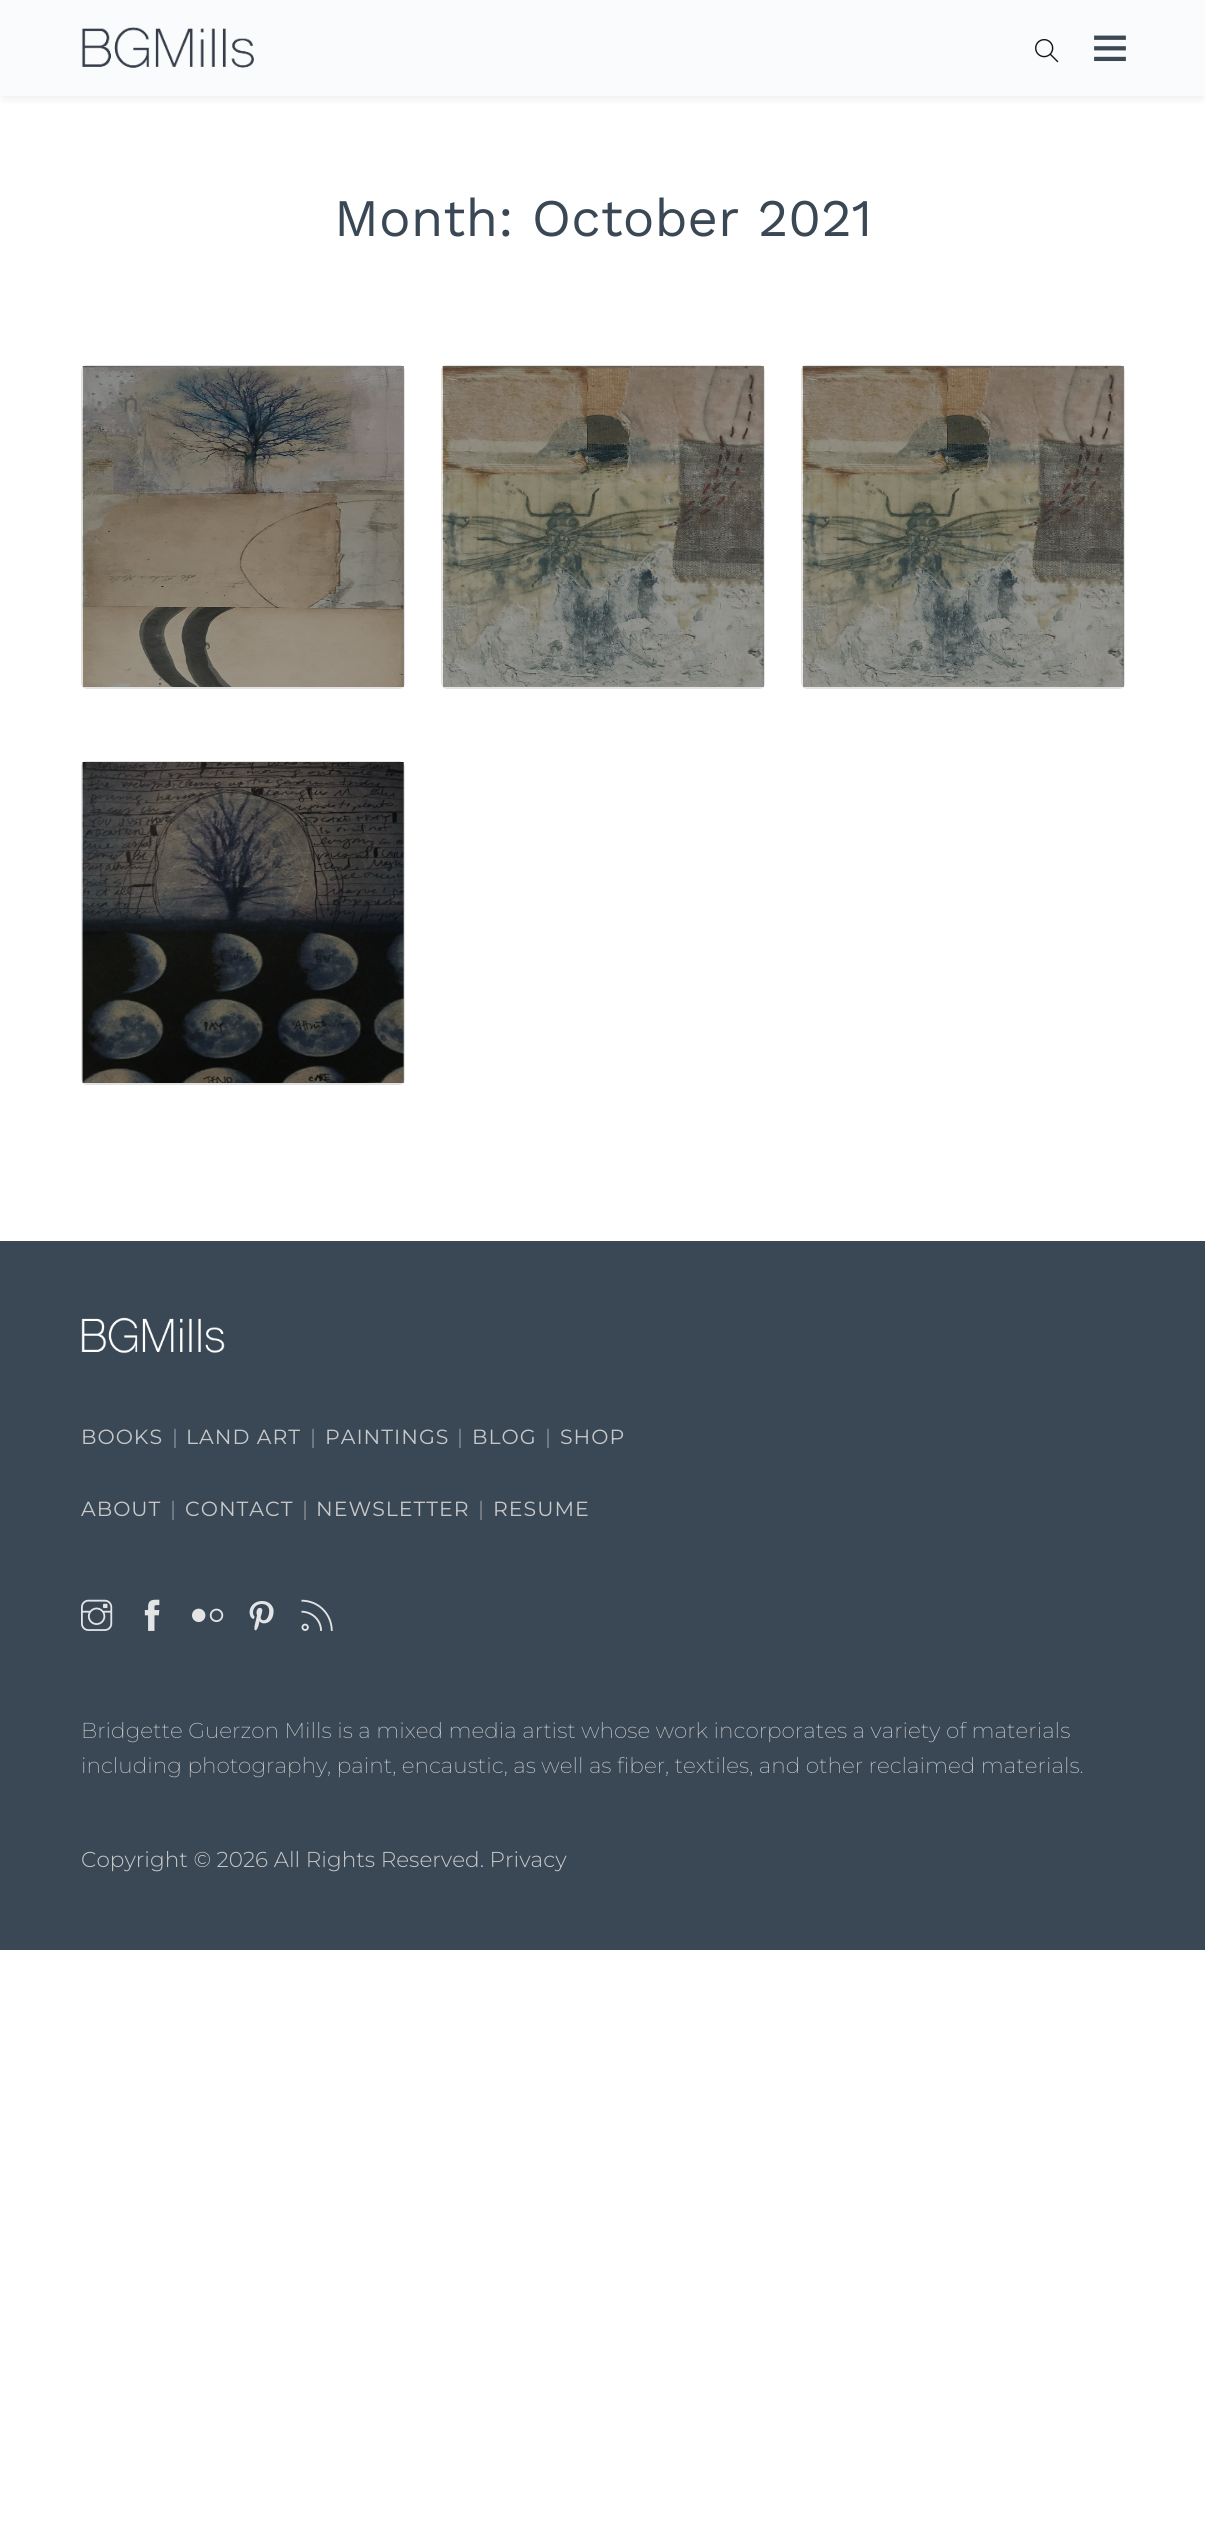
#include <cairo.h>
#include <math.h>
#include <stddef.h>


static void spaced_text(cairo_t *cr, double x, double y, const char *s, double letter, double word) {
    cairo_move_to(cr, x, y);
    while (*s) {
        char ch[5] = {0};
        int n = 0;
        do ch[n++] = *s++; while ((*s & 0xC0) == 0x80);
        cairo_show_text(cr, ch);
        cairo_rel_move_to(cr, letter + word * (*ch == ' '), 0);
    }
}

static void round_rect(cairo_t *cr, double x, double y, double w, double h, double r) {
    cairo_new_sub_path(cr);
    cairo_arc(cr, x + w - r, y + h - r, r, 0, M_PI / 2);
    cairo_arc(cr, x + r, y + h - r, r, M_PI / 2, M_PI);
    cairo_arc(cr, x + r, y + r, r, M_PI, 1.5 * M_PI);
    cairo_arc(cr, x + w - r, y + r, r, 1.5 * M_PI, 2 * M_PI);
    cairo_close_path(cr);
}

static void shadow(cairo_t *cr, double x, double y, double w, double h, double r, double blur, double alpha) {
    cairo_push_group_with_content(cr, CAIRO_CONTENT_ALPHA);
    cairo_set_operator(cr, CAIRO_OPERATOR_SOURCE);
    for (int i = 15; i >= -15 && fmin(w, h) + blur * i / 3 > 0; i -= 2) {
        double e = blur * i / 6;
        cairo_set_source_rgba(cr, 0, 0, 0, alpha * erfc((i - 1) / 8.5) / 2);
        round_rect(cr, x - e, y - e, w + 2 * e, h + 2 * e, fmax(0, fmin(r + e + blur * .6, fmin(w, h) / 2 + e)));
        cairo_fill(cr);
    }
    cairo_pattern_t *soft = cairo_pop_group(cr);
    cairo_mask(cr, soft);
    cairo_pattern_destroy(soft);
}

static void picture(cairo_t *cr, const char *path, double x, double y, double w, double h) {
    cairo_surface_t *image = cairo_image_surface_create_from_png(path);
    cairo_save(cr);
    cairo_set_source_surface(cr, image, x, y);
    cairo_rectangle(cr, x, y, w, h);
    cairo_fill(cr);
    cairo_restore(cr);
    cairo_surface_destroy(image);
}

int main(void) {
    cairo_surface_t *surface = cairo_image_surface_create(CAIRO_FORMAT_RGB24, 1205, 2537);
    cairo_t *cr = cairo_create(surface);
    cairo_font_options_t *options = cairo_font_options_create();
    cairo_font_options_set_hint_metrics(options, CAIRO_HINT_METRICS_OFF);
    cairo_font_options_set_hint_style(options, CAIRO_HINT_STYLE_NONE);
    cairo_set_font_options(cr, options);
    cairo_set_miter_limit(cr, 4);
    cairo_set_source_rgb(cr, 1, 1, 1);
    cairo_paint(cr);
    cairo_set_source_rgb(cr, 0, 0, 0);
    shadow(cr, 3, 8, 1200, 90, 0, 4.5, 0.08);
    cairo_set_source_rgb(cr, 0.98, 0.984, 0.988);
    cairo_rectangle(cr, 0, 0, 1205, 96);
    cairo_fill(cr);
    picture(cr, "img1.png", 81, 27, 173, 41);
    picture(cr, "img2.png", 1035, 39, 24, 24);
    picture(cr, "img3.png", 1094, 35, 32, 27);
    cairo_select_font_face(cr, "Work Sans", CAIRO_FONT_SLANT_NORMAL, CAIRO_FONT_WEIGHT_NORMAL);
    cairo_set_font_size(cr, 52.75);
    cairo_set_source_rgb(cr, 0.227, 0.282, 0.333);
    cairo_move_to(cr, 334, 236);
    cairo_show_text(cr, "Month: October 2021");
    round_rect(cr, 82, 366, 322, 322, 5);
    cairo_set_source_rgb(cr, 0.886, 0.886, 0.886);
    cairo_stroke(cr);
    picture(cr, "img4.png", 82, 366, 322, 321);
    cairo_set_source_rgba(cr, 0.004, 0.004, 0.004, 0.4);
    cairo_rectangle(cr, 83, 366, 321, 321);
    cairo_fill(cr);
    cairo_set_font_size(cr, 28);
    cairo_set_source_rgb(cr, 0.337, 0.349, 0.349);
    cairo_move_to(cr, 122, 412);
    cairo_show_text(cr, "n");
    round_rect(cr, 442, 366, 322, 322, 5);
    cairo_set_source_rgb(cr, 0.886, 0.886, 0.886);
    cairo_stroke(cr);
    picture(cr, "img5.png", 442, 366, 322, 321);
    cairo_set_source_rgba(cr, 0.004, 0.004, 0.004, 0.4);
    cairo_rectangle(cr, 443, 366, 321, 321);
    cairo_fill(cr);
    round_rect(cr, 802, 366, 322, 322, 5);
    cairo_set_source_rgb(cr, 0.886, 0.886, 0.886);
    cairo_stroke(cr);
    picture(cr, "img6.png", 802, 366, 322, 321);
    cairo_set_source_rgba(cr, 0.004, 0.004, 0.004, 0.4);
    cairo_rectangle(cr, 803, 366, 321, 321);
    cairo_fill(cr);
    round_rect(cr, 82, 762, 322, 322, 5);
    cairo_set_source_rgb(cr, 0.886, 0.886, 0.886);
    cairo_stroke(cr);
    picture(cr, "img7.png", 82, 762, 322, 321);
    cairo_set_source_rgba(cr, 0.004, 0.004, 0.004, 0.4);
    cairo_rectangle(cr, 83, 762, 321, 321);
    cairo_fill(cr);
    cairo_set_source_rgb(cr, 0.227, 0.282, 0.333);
    cairo_rectangle(cr, 0, 1241, 1205, 709);
    cairo_fill(cr);
    picture(cr, "img8.png", 81, 1317, 144, 37);
    cairo_select_font_face(cr, "Montserrat", CAIRO_FONT_SLANT_NORMAL, CAIRO_FONT_WEIGHT_NORMAL);
    cairo_set_font_size(cr, 20.5);
    cairo_set_source_rgb(cr, 0.78, 0.784, 0.788);
    spaced_text(cr, 81, 1444, "BOOKS", 1, 0);
    cairo_set_source_rgb(cr, 0.533, 0.557, 0.584);
    spaced_text(cr, 172, 1444, "|", 1, 0);
    cairo_set_source_rgb(cr, 0.78, 0.784, 0.788);
    spaced_text(cr, 186, 1444, "LAND ART", 1, 0);
    cairo_set_source_rgb(cr, 0.533, 0.557, 0.584);
    spaced_text(cr, 310, 1444, "|", 1, 0);
    cairo_set_source_rgb(cr, 0.78, 0.784, 0.788);
    spaced_text(cr, 325, 1444, "PAINTINGS", 1, 0);
    cairo_set_source_rgb(cr, 0.533, 0.557, 0.584);
    spaced_text(cr, 457, 1444, "|", 1, 0);
    cairo_set_source_rgb(cr, 0.78, 0.784, 0.788);
    spaced_text(cr, 472, 1444, "BLOG", 1, 0);
    cairo_set_source_rgb(cr, 0.533, 0.557, 0.584);
    spaced_text(cr, 545, 1444, "|", 1, 0);
    cairo_set_source_rgb(cr, 0.78, 0.784, 0.788);
    spaced_text(cr, 560, 1444, "SHOP", 1, 0);
    spaced_text(cr, 81, 1516, "ABOUT", 1, 0);
    cairo_set_source_rgb(cr, 0.533, 0.557, 0.584);
    spaced_text(cr, 170, 1516, "|", 1, 0);
    cairo_set_source_rgb(cr, 0.78, 0.784, 0.788);
    spaced_text(cr, 185, 1516, "CONTACT", 1, 0);
    cairo_set_source_rgb(cr, 0.533, 0.557, 0.584);
    spaced_text(cr, 302, 1516, "|", 1, 0);
    cairo_set_source_rgb(cr, 0.78, 0.784, 0.788);
    spaced_text(cr, 316, 1516, "NEWSLETTER", 1, 0);
    cairo_set_source_rgb(cr, 0.533, 0.557, 0.584);
    spaced_text(cr, 478, 1516, "|", 1, 0);
    cairo_set_source_rgb(cr, 0.78, 0.784, 0.788);
    spaced_text(cr, 493, 1516, "RESUME", 1, 0);
    picture(cr, "img9.png", 81, 1599, 32, 32);
    picture(cr, "img10.png", 144, 1599, 16, 32);
    picture(cr, "img11.png", 192, 1608, 32, 15);
    picture(cr, "img12.png", 249, 1601, 25, 30);
    picture(cr, "img13.png", 301, 1599, 32, 32);
    cairo_select_font_face(cr, "Montserrat ExtraLight", CAIRO_FONT_SLANT_NORMAL, CAIRO_FONT_WEIGHT_NORMAL);
    cairo_set_font_size(cr, 21.6);
    cairo_move_to(cr, 81, 1738);
    cairo_show_text(cr, "Bridgette Guerzon Mills is a mixed media artist whose work incorporates a variety of materials");
    cairo_move_to(cr, 81, 1773);
    cairo_show_text(cr, "including photography, paint, encaustic, as well as fiber, textiles, and other reclaimed materials.");
    cairo_select_font_face(cr, "Montserrat Light", CAIRO_FONT_SLANT_NORMAL, CAIRO_FONT_WEIGHT_NORMAL);
    cairo_move_to(cr, 81, 1867);
    cairo_show_text(cr, "Copyright © 2026 All Rights Reserved. Privacy");
    cairo_surface_write_to_png(surface, "page.png");
    cairo_font_options_destroy(options);
    cairo_destroy(cr);
    cairo_surface_destroy(surface);
    return 0;
}
